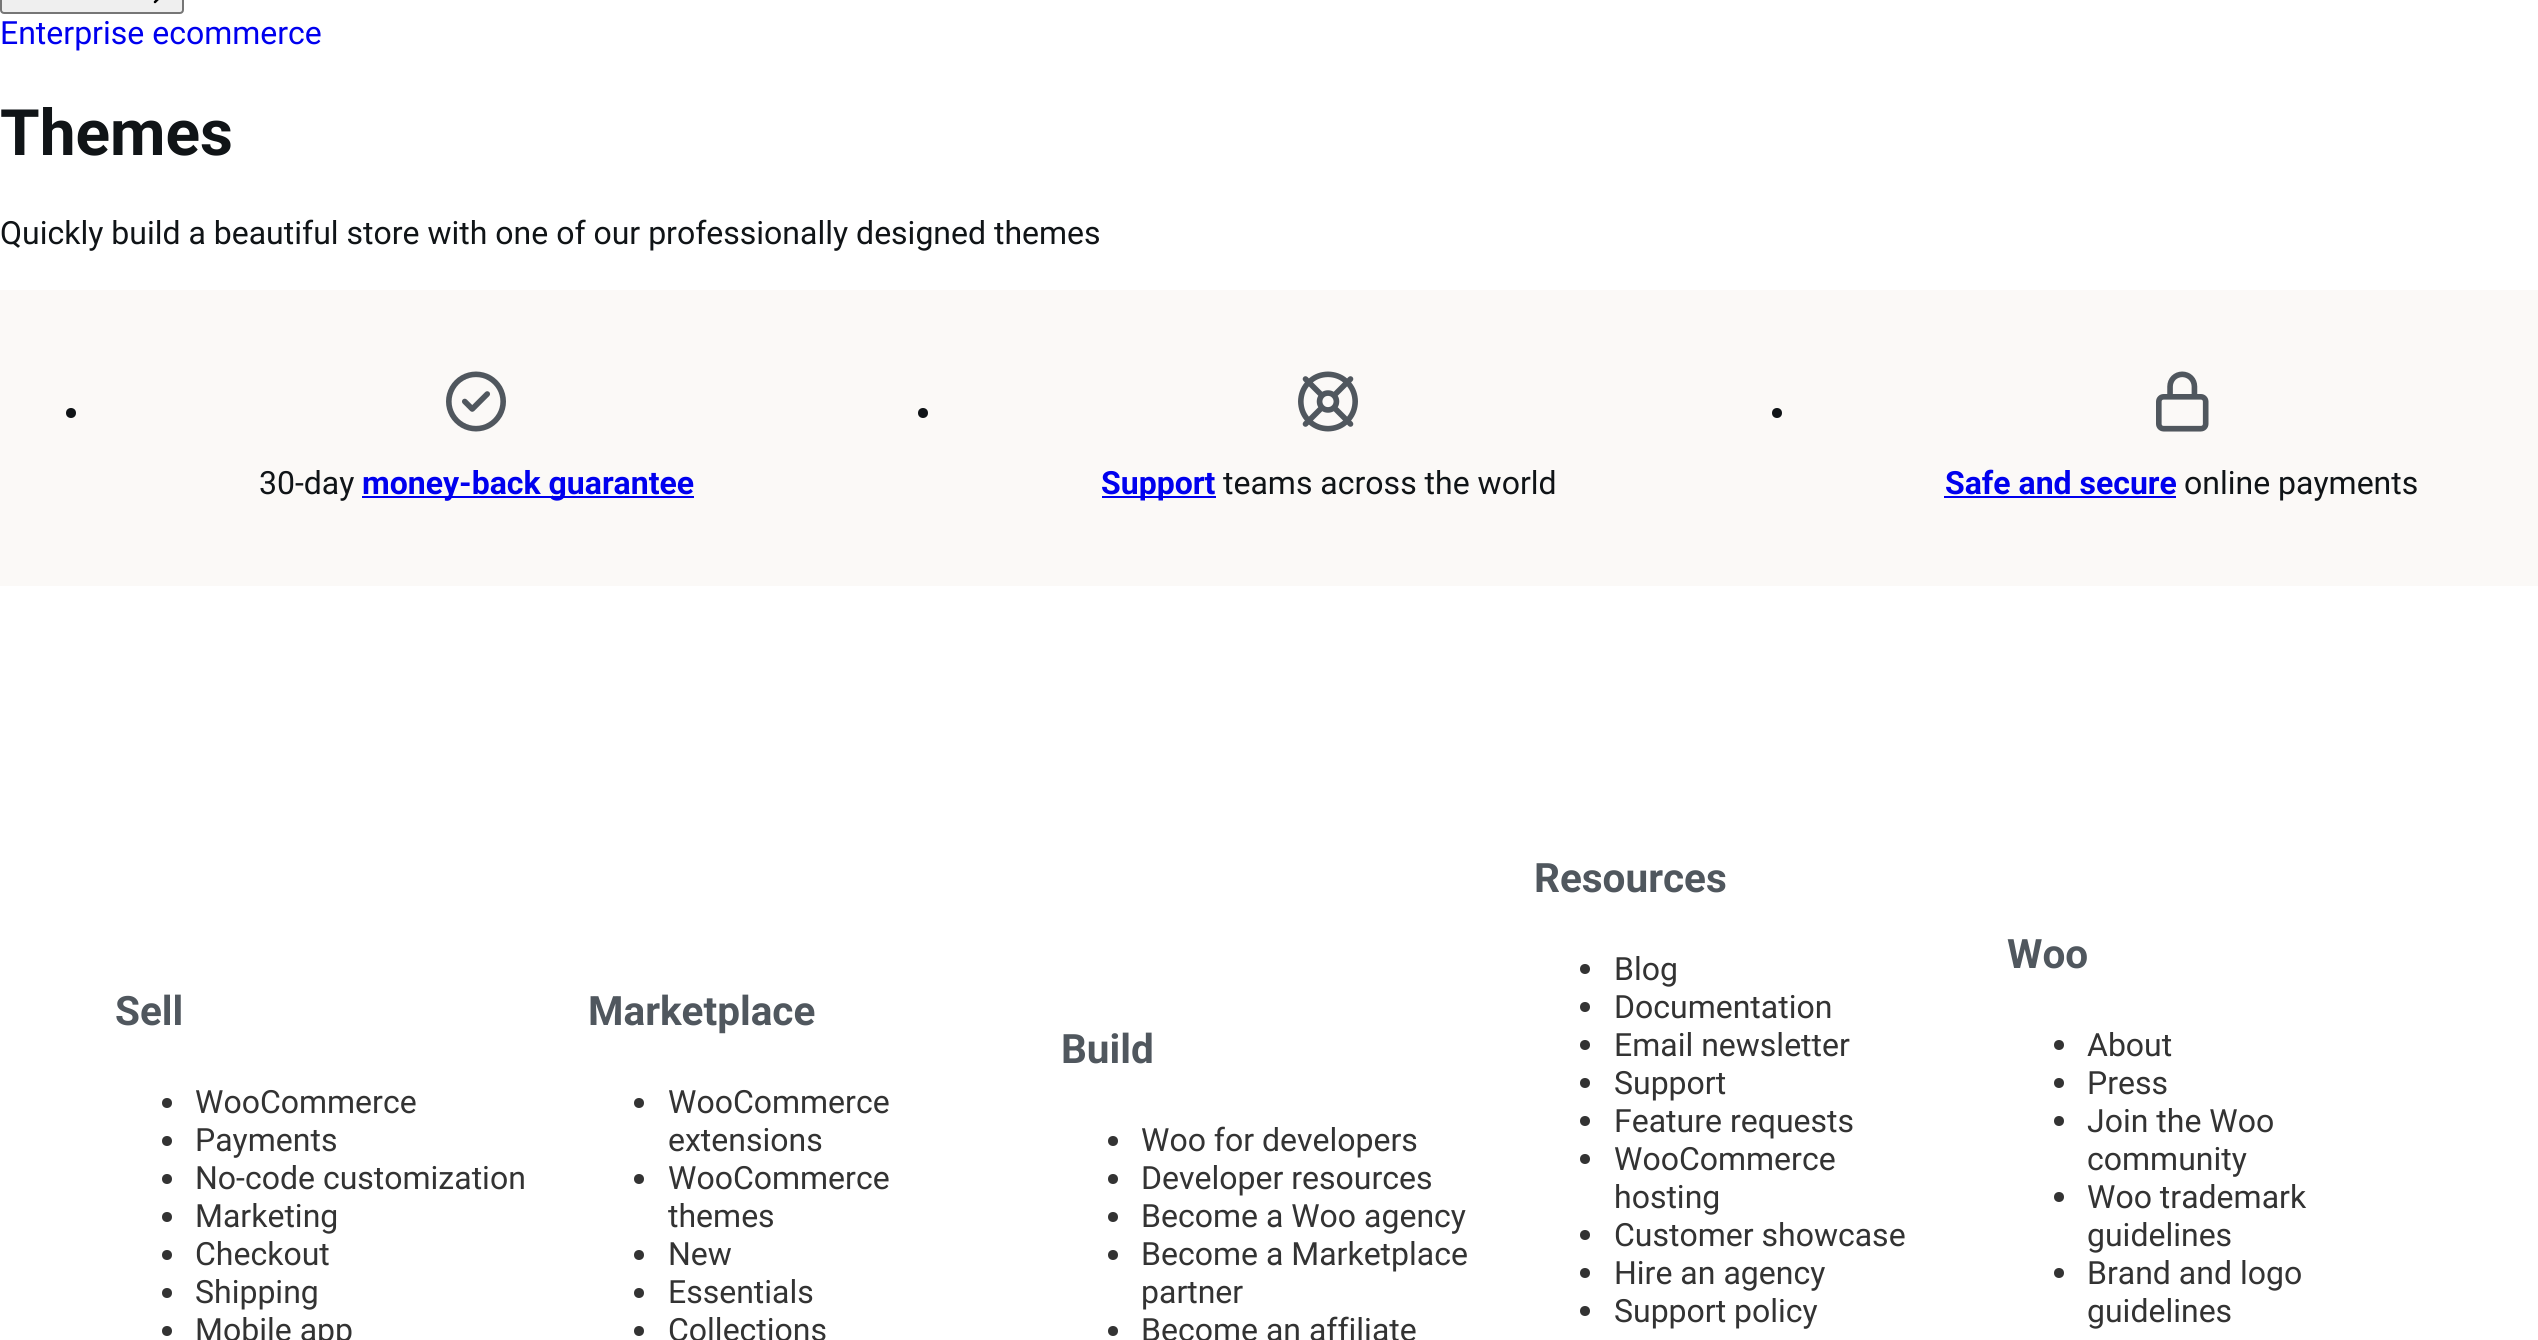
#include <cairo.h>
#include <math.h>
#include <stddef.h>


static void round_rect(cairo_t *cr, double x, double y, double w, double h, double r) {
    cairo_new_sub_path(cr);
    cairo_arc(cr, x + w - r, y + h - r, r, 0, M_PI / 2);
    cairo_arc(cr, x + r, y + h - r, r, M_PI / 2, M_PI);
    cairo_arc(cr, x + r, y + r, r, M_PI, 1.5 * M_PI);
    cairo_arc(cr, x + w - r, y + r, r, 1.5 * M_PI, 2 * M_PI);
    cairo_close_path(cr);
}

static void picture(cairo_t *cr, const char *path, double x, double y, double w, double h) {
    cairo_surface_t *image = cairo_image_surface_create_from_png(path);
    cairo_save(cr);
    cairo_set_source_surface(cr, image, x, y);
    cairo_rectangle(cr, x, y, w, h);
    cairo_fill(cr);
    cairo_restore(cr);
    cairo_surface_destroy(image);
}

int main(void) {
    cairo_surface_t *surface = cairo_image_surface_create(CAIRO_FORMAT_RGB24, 2538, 1340);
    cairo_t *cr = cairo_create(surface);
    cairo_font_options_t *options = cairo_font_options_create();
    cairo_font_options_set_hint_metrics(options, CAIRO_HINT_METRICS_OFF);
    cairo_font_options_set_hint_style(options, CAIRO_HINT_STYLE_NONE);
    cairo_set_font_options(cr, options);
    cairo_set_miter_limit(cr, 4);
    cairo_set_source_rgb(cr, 1, 1, 1);
    cairo_paint(cr);
    cairo_set_source_rgb(cr, 0.937, 0.937, 0.937);
    round_rect(cr, 1, -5, 182, 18, 3);
    cairo_fill_preserve(cr);
    cairo_set_source_rgb(cr, 0.463, 0.463, 0.463);
    cairo_stroke(cr);
    picture(cr, "img1.png", 153, 0, 6, 4);
    cairo_select_font_face(cr, "Roboto", CAIRO_FONT_SLANT_NORMAL, CAIRO_FONT_WEIGHT_NORMAL);
    cairo_set_font_size(cr, 32);
    cairo_set_source_rgb(cr, 0, 0, 0.933);
    cairo_move_to(cr, 0, 44);
    cairo_show_text(cr, "Enterprise ecommerce");
    cairo_select_font_face(cr, "Roboto", CAIRO_FONT_SLANT_NORMAL, CAIRO_FONT_WEIGHT_BOLD);
    cairo_set_font_size(cr, 64);
    cairo_set_source_rgb(cr, 0.063, 0.082, 0.09);
    cairo_move_to(cr, 0, 155);
    cairo_show_text(cr, "Themes");
    cairo_select_font_face(cr, "Roboto", CAIRO_FONT_SLANT_NORMAL, CAIRO_FONT_WEIGHT_NORMAL);
    cairo_set_font_size(cr, 32);
    cairo_move_to(cr, 0, 244);
    cairo_show_text(cr, "Quickly build a beautiful store with one of our professionally designed themes");
    cairo_set_source_rgb(cr, 0.984, 0.976, 0.965);
    cairo_rectangle(cr, 0, 290, 2538, 296);
    cairo_fill(cr);
    cairo_set_source_rgb(cr, 0.063, 0.082, 0.09);
    cairo_arc(cr, 71, 413, 5, 0, 2 * M_PI);
    cairo_fill(cr);
    picture(cr, "img2.png", 446, 371, 60, 61);
    cairo_move_to(cr, 259, 494);
    cairo_show_text(cr, "30-day");
    cairo_set_source_rgb(cr, 0, 0, 0.933);
    cairo_rectangle(cr, 362, 496, 332, 2);
    cairo_fill(cr);
    cairo_select_font_face(cr, "Roboto", CAIRO_FONT_SLANT_NORMAL, CAIRO_FONT_WEIGHT_BOLD);
    cairo_move_to(cr, 362, 494);
    cairo_show_text(cr, "money-back guarantee");
    cairo_set_source_rgb(cr, 0.063, 0.082, 0.09);
    cairo_new_path(cr);
    cairo_arc(cr, 923, 413, 5, 0, 2 * M_PI);
    cairo_fill(cr);
    picture(cr, "img3.png", 1298, 371, 60, 61);
    cairo_set_source_rgb(cr, 0, 0, 0.933);
    cairo_rectangle(cr, 1102, 496, 114, 2);
    cairo_fill(cr);
    cairo_move_to(cr, 1101, 494);
    cairo_show_text(cr, "Support");
    cairo_select_font_face(cr, "Roboto", CAIRO_FONT_SLANT_NORMAL, CAIRO_FONT_WEIGHT_NORMAL);
    cairo_set_source_rgb(cr, 0.063, 0.082, 0.09);
    cairo_move_to(cr, 1223, 494);
    cairo_show_text(cr, "teams across the world");
    cairo_new_path(cr);
    cairo_arc(cr, 1777, 413, 5, 0, 2 * M_PI);
    cairo_fill(cr);
    picture(cr, "img4.png", 2156, 371, 53, 61);
    cairo_select_font_face(cr, "Roboto", CAIRO_FONT_SLANT_NORMAL, CAIRO_FONT_WEIGHT_BOLD);
    cairo_set_source_rgb(cr, 0, 0, 0.933);
    cairo_move_to(cr, 1945, 494);
    cairo_show_text(cr, "Safe and secure");
    cairo_rectangle(cr, 1944, 496, 232, 2);
    cairo_fill(cr);
    cairo_select_font_face(cr, "Roboto", CAIRO_FONT_SLANT_NORMAL, CAIRO_FONT_WEIGHT_NORMAL);
    cairo_set_source_rgb(cr, 0.063, 0.082, 0.09);
    cairo_move_to(cr, 2184, 494);
    cairo_show_text(cr, "online payments");
    cairo_select_font_face(cr, "Roboto", CAIRO_FONT_SLANT_NORMAL, CAIRO_FONT_WEIGHT_BOLD);
    cairo_set_font_size(cr, 40.5);
    cairo_set_source_rgb(cr, 0.314, 0.341, 0.369);
    cairo_move_to(cr, 115, 1025);
    cairo_show_text(cr, "Sell");
    cairo_set_source_rgb(cr, 0.2, 0.2, 0.2);
    cairo_new_path(cr);
    cairo_arc(cr, 167, 1103, 5, 0, 2 * M_PI);
    cairo_fill(cr);
    cairo_select_font_face(cr, "Roboto", CAIRO_FONT_SLANT_NORMAL, CAIRO_FONT_WEIGHT_NORMAL);
    cairo_set_font_size(cr, 32);
    cairo_move_to(cr, 195, 1113);
    cairo_show_text(cr, "WooCommerce");
    cairo_new_path(cr);
    cairo_arc(cr, 167, 1141, 5, 0, 2 * M_PI);
    cairo_fill(cr);
    cairo_move_to(cr, 195, 1151);
    cairo_show_text(cr, "Payments");
    cairo_new_path(cr);
    cairo_arc(cr, 167, 1179, 5, 0, 2 * M_PI);
    cairo_fill(cr);
    cairo_move_to(cr, 195, 1189);
    cairo_show_text(cr, "No-code customization");
    cairo_new_path(cr);
    cairo_arc(cr, 167, 1217, 5, 0, 2 * M_PI);
    cairo_fill(cr);
    cairo_move_to(cr, 195, 1227);
    cairo_show_text(cr, "Marketing");
    cairo_new_path(cr);
    cairo_arc(cr, 167, 1255, 5, 0, 2 * M_PI);
    cairo_fill(cr);
    cairo_move_to(cr, 195, 1265);
    cairo_show_text(cr, "Checkout");
    cairo_new_path(cr);
    cairo_arc(cr, 167, 1293, 5, 0, 2 * M_PI);
    cairo_fill(cr);
    cairo_move_to(cr, 195, 1303);
    cairo_show_text(cr, "Shipping");
    cairo_new_path(cr);
    cairo_arc(cr, 167, 1331, 5, 0, 2 * M_PI);
    cairo_fill(cr);
    cairo_move_to(cr, 195, 1341);
    cairo_show_text(cr, "Mobile app");
    cairo_select_font_face(cr, "Roboto", CAIRO_FONT_SLANT_NORMAL, CAIRO_FONT_WEIGHT_BOLD);
    cairo_set_font_size(cr, 40.5);
    cairo_set_source_rgb(cr, 0.314, 0.341, 0.369);
    cairo_move_to(cr, 588, 1025);
    cairo_show_text(cr, "Marketplace");
    cairo_set_source_rgb(cr, 0.2, 0.2, 0.2);
    cairo_new_path(cr);
    cairo_arc(cr, 639, 1103, 5, 0, 2 * M_PI);
    cairo_fill(cr);
    cairo_select_font_face(cr, "Roboto", CAIRO_FONT_SLANT_NORMAL, CAIRO_FONT_WEIGHT_NORMAL);
    cairo_set_font_size(cr, 32);
    cairo_move_to(cr, 668, 1113);
    cairo_show_text(cr, "WooCommerce");
    cairo_move_to(cr, 668, 1151);
    cairo_show_text(cr, "extensions");
    cairo_new_path(cr);
    cairo_arc(cr, 639, 1179, 5, 0, 2 * M_PI);
    cairo_fill(cr);
    cairo_move_to(cr, 668, 1189);
    cairo_show_text(cr, "WooCommerce");
    cairo_move_to(cr, 668, 1227);
    cairo_show_text(cr, "themes");
    cairo_new_path(cr);
    cairo_arc(cr, 639, 1255, 5, 0, 2 * M_PI);
    cairo_fill(cr);
    cairo_move_to(cr, 668, 1265);
    cairo_show_text(cr, "New");
    cairo_new_path(cr);
    cairo_arc(cr, 639, 1293, 5, 0, 2 * M_PI);
    cairo_fill(cr);
    cairo_move_to(cr, 668, 1303);
    cairo_show_text(cr, "Essentials");
    cairo_new_path(cr);
    cairo_arc(cr, 639, 1331, 5, 0, 2 * M_PI);
    cairo_fill(cr);
    cairo_move_to(cr, 668, 1341);
    cairo_show_text(cr, "Collections");
    cairo_select_font_face(cr, "Roboto", CAIRO_FONT_SLANT_NORMAL, CAIRO_FONT_WEIGHT_BOLD);
    cairo_set_font_size(cr, 40.5);
    cairo_set_source_rgb(cr, 0.314, 0.341, 0.369);
    cairo_move_to(cr, 1061, 1063);
    cairo_show_text(cr, "Build");
    cairo_set_source_rgb(cr, 0.2, 0.2, 0.2);
    cairo_new_path(cr);
    cairo_arc(cr, 1113, 1141, 5, 0, 2 * M_PI);
    cairo_fill(cr);
    cairo_select_font_face(cr, "Roboto", CAIRO_FONT_SLANT_NORMAL, CAIRO_FONT_WEIGHT_NORMAL);
    cairo_set_font_size(cr, 32);
    cairo_move_to(cr, 1141, 1151);
    cairo_show_text(cr, "Woo for developers");
    cairo_new_path(cr);
    cairo_arc(cr, 1113, 1179, 5, 0, 2 * M_PI);
    cairo_fill(cr);
    cairo_move_to(cr, 1141, 1189);
    cairo_show_text(cr, "Developer resources");
    cairo_new_path(cr);
    cairo_arc(cr, 1113, 1217, 5, 0, 2 * M_PI);
    cairo_fill(cr);
    cairo_move_to(cr, 1141, 1227);
    cairo_show_text(cr, "Become a Woo agency");
    cairo_new_path(cr);
    cairo_arc(cr, 1113, 1255, 5, 0, 2 * M_PI);
    cairo_fill(cr);
    cairo_move_to(cr, 1141, 1265);
    cairo_show_text(cr, "Become a Marketplace");
    cairo_move_to(cr, 1141, 1303);
    cairo_show_text(cr, "partner");
    cairo_new_path(cr);
    cairo_arc(cr, 1113, 1331, 5, 0, 2 * M_PI);
    cairo_fill(cr);
    cairo_move_to(cr, 1141, 1341);
    cairo_show_text(cr, "Become an affiliate");
    cairo_select_font_face(cr, "Roboto", CAIRO_FONT_SLANT_NORMAL, CAIRO_FONT_WEIGHT_BOLD);
    cairo_set_font_size(cr, 40.5);
    cairo_set_source_rgb(cr, 0.314, 0.341, 0.369);
    cairo_move_to(cr, 1534, 892);
    cairo_show_text(cr, "Resources");
    cairo_set_source_rgb(cr, 0.2, 0.2, 0.2);
    cairo_new_path(cr);
    cairo_arc(cr, 1585, 969, 5, 0, 2 * M_PI);
    cairo_fill(cr);
    cairo_select_font_face(cr, "Roboto", CAIRO_FONT_SLANT_NORMAL, CAIRO_FONT_WEIGHT_NORMAL);
    cairo_set_font_size(cr, 32);
    cairo_move_to(cr, 1614, 980);
    cairo_show_text(cr, "Blog");
    cairo_new_path(cr);
    cairo_arc(cr, 1585, 1007, 5, 0, 2 * M_PI);
    cairo_fill(cr);
    cairo_move_to(cr, 1614, 1018);
    cairo_show_text(cr, "Documentation");
    cairo_new_path(cr);
    cairo_arc(cr, 1585, 1045, 5, 0, 2 * M_PI);
    cairo_fill(cr);
    cairo_move_to(cr, 1614, 1056);
    cairo_show_text(cr, "Email newsletter");
    cairo_new_path(cr);
    cairo_arc(cr, 1585, 1083, 5, 0, 2 * M_PI);
    cairo_fill(cr);
    cairo_move_to(cr, 1614, 1094);
    cairo_show_text(cr, "Support");
    cairo_new_path(cr);
    cairo_arc(cr, 1585, 1121, 5, 0, 2 * M_PI);
    cairo_fill(cr);
    cairo_move_to(cr, 1614, 1132);
    cairo_show_text(cr, "Feature requests");
    cairo_new_path(cr);
    cairo_arc(cr, 1585, 1159, 5, 0, 2 * M_PI);
    cairo_fill(cr);
    cairo_move_to(cr, 1614, 1170);
    cairo_show_text(cr, "WooCommerce");
    cairo_move_to(cr, 1614, 1208);
    cairo_show_text(cr, "hosting");
    cairo_new_path(cr);
    cairo_arc(cr, 1585, 1235, 5, 0, 2 * M_PI);
    cairo_fill(cr);
    cairo_move_to(cr, 1614, 1246);
    cairo_show_text(cr, "Customer showcase");
    cairo_new_path(cr);
    cairo_arc(cr, 1585, 1273, 5, 0, 2 * M_PI);
    cairo_fill(cr);
    cairo_move_to(cr, 1614, 1284);
    cairo_show_text(cr, "Hire an agency");
    cairo_new_path(cr);
    cairo_arc(cr, 1585, 1311, 5, 0, 2 * M_PI);
    cairo_fill(cr);
    cairo_move_to(cr, 1614, 1322);
    cairo_show_text(cr, "Support policy");
    cairo_select_font_face(cr, "Roboto", CAIRO_FONT_SLANT_NORMAL, CAIRO_FONT_WEIGHT_BOLD);
    cairo_set_font_size(cr, 40.5);
    cairo_set_source_rgb(cr, 0.314, 0.341, 0.369);
    cairo_move_to(cr, 2007, 968);
    cairo_show_text(cr, "Woo");
    cairo_set_source_rgb(cr, 0.2, 0.2, 0.2);
    cairo_new_path(cr);
    cairo_arc(cr, 2059, 1045, 5, 0, 2 * M_PI);
    cairo_fill(cr);
    cairo_select_font_face(cr, "Roboto", CAIRO_FONT_SLANT_NORMAL, CAIRO_FONT_WEIGHT_NORMAL);
    cairo_set_font_size(cr, 32);
    cairo_move_to(cr, 2087, 1056);
    cairo_show_text(cr, "About");
    cairo_new_path(cr);
    cairo_arc(cr, 2059, 1083, 5, 0, 2 * M_PI);
    cairo_fill(cr);
    cairo_move_to(cr, 2087, 1094);
    cairo_show_text(cr, "Press");
    cairo_new_path(cr);
    cairo_arc(cr, 2059, 1121, 5, 0, 2 * M_PI);
    cairo_fill(cr);
    cairo_move_to(cr, 2087, 1132);
    cairo_show_text(cr, "Join the Woo");
    cairo_move_to(cr, 2087, 1170);
    cairo_show_text(cr, "community");
    cairo_new_path(cr);
    cairo_arc(cr, 2059, 1197, 5, 0, 2 * M_PI);
    cairo_fill(cr);
    cairo_move_to(cr, 2087, 1208);
    cairo_show_text(cr, "Woo trademark");
    cairo_move_to(cr, 2087, 1246);
    cairo_show_text(cr, "guidelines");
    cairo_new_path(cr);
    cairo_arc(cr, 2059, 1273, 5, 0, 2 * M_PI);
    cairo_fill(cr);
    cairo_move_to(cr, 2087, 1284);
    cairo_show_text(cr, "Brand and logo");
    cairo_move_to(cr, 2087, 1322);
    cairo_show_text(cr, "guidelines");
    cairo_surface_write_to_png(surface, "page.png");
    cairo_font_options_destroy(options);
    cairo_destroy(cr);
    cairo_surface_destroy(surface);
    return 0;
}
